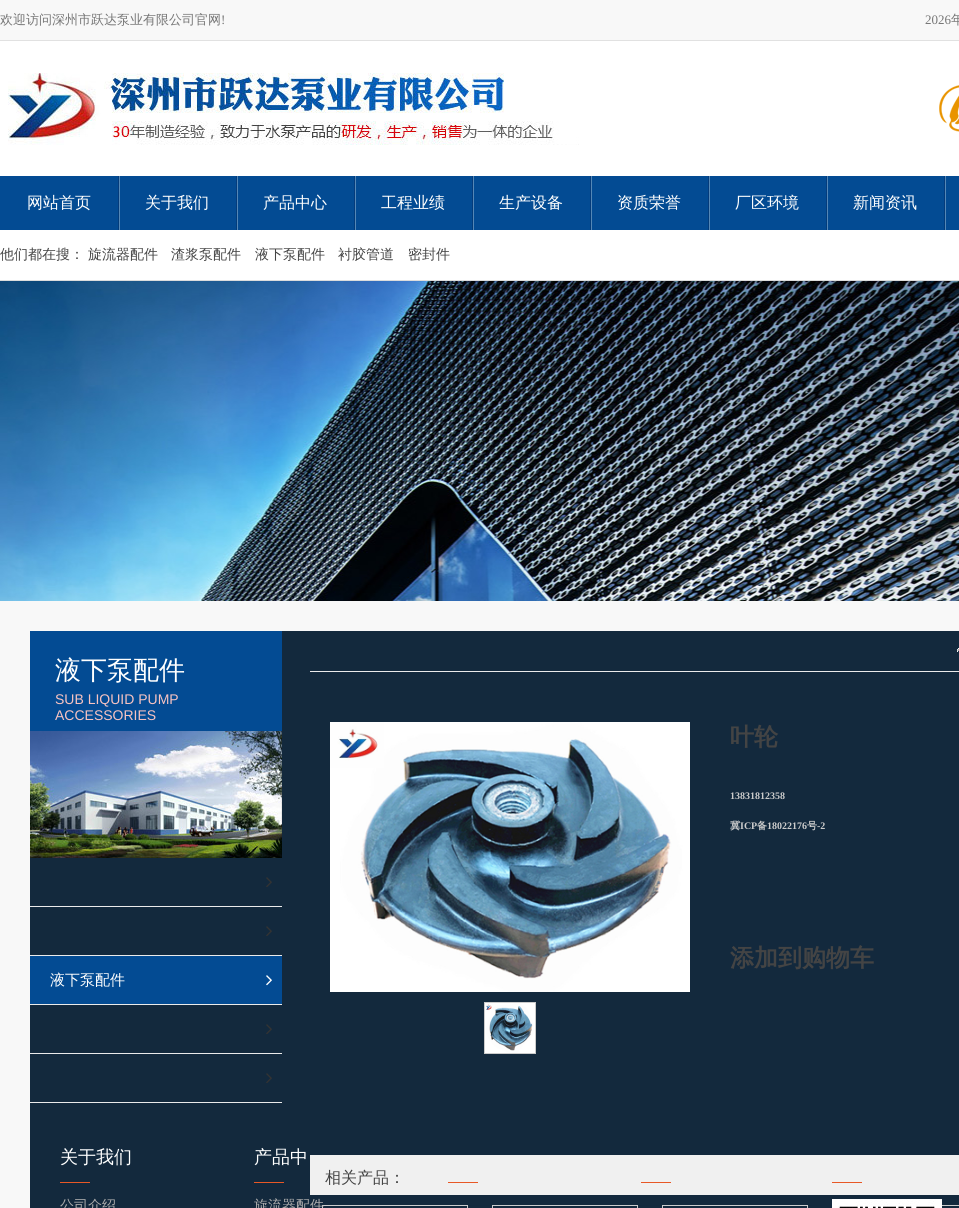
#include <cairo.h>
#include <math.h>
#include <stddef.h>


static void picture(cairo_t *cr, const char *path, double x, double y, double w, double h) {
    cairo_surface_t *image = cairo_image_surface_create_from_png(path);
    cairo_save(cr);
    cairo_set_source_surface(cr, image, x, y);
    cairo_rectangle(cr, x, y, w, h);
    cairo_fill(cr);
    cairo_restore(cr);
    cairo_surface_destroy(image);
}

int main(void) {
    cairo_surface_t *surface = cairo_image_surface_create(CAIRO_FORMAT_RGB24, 959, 1208);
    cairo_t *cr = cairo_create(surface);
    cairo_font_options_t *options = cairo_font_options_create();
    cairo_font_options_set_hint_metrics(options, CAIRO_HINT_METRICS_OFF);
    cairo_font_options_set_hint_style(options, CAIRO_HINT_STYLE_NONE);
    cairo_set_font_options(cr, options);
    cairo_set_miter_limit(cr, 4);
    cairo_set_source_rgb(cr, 0.969, 0.969, 0.969);
    cairo_paint(cr);
    cairo_set_source_rgb(cr, 0.882, 0.882, 0.882);
    cairo_rectangle(cr, 0, 40, 959, 1);
    cairo_fill(cr);
    cairo_select_font_face(cr, "WenQuanYi Zen Hei Medium", CAIRO_FONT_SLANT_NORMAL, CAIRO_FONT_WEIGHT_NORMAL);
    cairo_set_font_size(cr, 13);
    cairo_set_source_rgb(cr, 0.463, 0.463, 0.463);
    cairo_move_to(cr, 0, 24);
    cairo_show_text(cr, "欢迎访问深州市跃达泵业有限公司官网");
    cairo_select_font_face(cr, "Liberation Serif", CAIRO_FONT_SLANT_NORMAL, CAIRO_FONT_WEIGHT_NORMAL);
    cairo_move_to(cr, 221, 24);
    cairo_show_text(cr, "!");
    cairo_move_to(cr, 925, 24);
    cairo_show_text(cr, "2026");
    cairo_select_font_face(cr, "WenQuanYi Zen Hei Medium", CAIRO_FONT_SLANT_NORMAL, CAIRO_FONT_WEIGHT_NORMAL);
    cairo_move_to(cr, 951, 24);
    cairo_show_text(cr, "年");
    cairo_set_source_rgb(cr, 1, 1, 1);
    cairo_rectangle(cr, 0, 41, 959, 135);
    cairo_fill(cr);
    picture(cr, "img1.png", 8, 73, 571, 72);
    picture(cr, "img2.png", 939, 85, 20, 47);
    cairo_set_source_rgb(cr, 0.012, 0.294, 0.576);
    cairo_rectangle(cr, 0, 176, 959, 54);
    cairo_fill(cr);
    cairo_set_font_size(cr, 16);
    cairo_set_source_rgb(cr, 1, 1, 1);
    cairo_move_to(cr, 27, 208);
    cairo_show_text(cr, "网站首页");
    picture(cr, "img3.png", 118, 176, 2, 54);
    cairo_move_to(cr, 145, 208);
    cairo_show_text(cr, "关于我们");
    picture(cr, "img3.png", 236, 176, 2, 54);
    cairo_move_to(cr, 263, 208);
    cairo_show_text(cr, "产品中心");
    picture(cr, "img3.png", 354, 176, 2, 54);
    cairo_move_to(cr, 381, 208);
    cairo_show_text(cr, "工程业绩");
    picture(cr, "img3.png", 472, 176, 2, 54);
    cairo_move_to(cr, 499, 208);
    cairo_show_text(cr, "生产设备");
    picture(cr, "img3.png", 590, 176, 2, 54);
    cairo_move_to(cr, 617, 208);
    cairo_show_text(cr, "资质荣誉");
    picture(cr, "img3.png", 708, 176, 2, 54);
    cairo_move_to(cr, 735, 208);
    cairo_show_text(cr, "厂区环境");
    picture(cr, "img3.png", 826, 176, 2, 54);
    cairo_move_to(cr, 853, 208);
    cairo_show_text(cr, "新闻资讯");
    picture(cr, "img3.png", 944, 176, 2, 54);
    cairo_rectangle(cr, 0, 230, 959, 50);
    cairo_fill(cr);
    cairo_set_source_rgb(cr, 0.863, 0.863, 0.863);
    cairo_rectangle(cr, 0, 280, 959, 1);
    cairo_fill(cr);
    cairo_set_font_size(cr, 14);
    cairo_set_source_rgb(cr, 0.267, 0.267, 0.267);
    cairo_move_to(cr, 0, 259);
    cairo_show_text(cr, "他们都在搜：");
    cairo_move_to(cr, 88, 259);
    cairo_show_text(cr, "旋流器配件");
    cairo_move_to(cr, 171, 259);
    cairo_show_text(cr, "渣浆泵配件");
    cairo_move_to(cr, 255, 259);
    cairo_show_text(cr, "液下泵配件");
    cairo_move_to(cr, 338, 259);
    cairo_show_text(cr, "衬胶管道");
    cairo_move_to(cr, 408, 259);
    cairo_show_text(cr, "密封件");
    picture(cr, "img4.png", 0, 281, 959, 320);
    cairo_set_source_rgb(cr, 0.075, 0.161, 0.239);
    cairo_rectangle(cr, 30, 631, 929, 577);
    cairo_fill(cr);
    cairo_set_source_rgb(cr, 0.012, 0.294, 0.576);
    cairo_rectangle(cr, 30, 631, 252, 100);
    cairo_fill(cr);
    cairo_set_font_size(cr, 26);
    cairo_set_source_rgb(cr, 1, 1, 1);
    cairo_move_to(cr, 55, 679);
    cairo_show_text(cr, "液下泵配件");
    cairo_select_font_face(cr, "Liberation Sans", CAIRO_FONT_SLANT_NORMAL, CAIRO_FONT_WEIGHT_NORMAL);
    cairo_set_font_size(cr, 14);
    cairo_set_source_rgb(cr, 0.965, 0.765, 0.757);
    cairo_move_to(cr, 55, 704);
    cairo_show_text(cr, "SUB LIQUID PUMP");
    cairo_move_to(cr, 55, 720);
    cairo_show_text(cr, "ACCESSORIES");
    picture(cr, "img5.png", 30, 731, 252, 127);
    cairo_set_source_rgb(cr, 0.918, 0.918, 0.918);
    cairo_rectangle(cr, 30, 906, 252, 1);
    cairo_fill(cr);
    picture(cr, "img6.png", 266, 877, 6, 10);
    cairo_rectangle(cr, 30, 955, 252, 1);
    cairo_fill(cr);
    picture(cr, "img6.png", 266, 926, 6, 10);
    cairo_rectangle(cr, 30, 1004, 252, 1);
    cairo_fill(cr);
    cairo_set_source_rgb(cr, 0.012, 0.294, 0.576);
    cairo_rectangle(cr, 30, 956, 252, 48);
    cairo_fill(cr);
    cairo_select_font_face(cr, "WenQuanYi Zen Hei Medium", CAIRO_FONT_SLANT_NORMAL, CAIRO_FONT_WEIGHT_NORMAL);
    cairo_set_font_size(cr, 15);
    cairo_set_source_rgb(cr, 1, 1, 1);
    cairo_move_to(cr, 50, 985);
    cairo_show_text(cr, "液下泵配件");
    picture(cr, "img7.png", 266, 975, 6, 11);
    cairo_set_source_rgb(cr, 0.918, 0.918, 0.918);
    cairo_rectangle(cr, 30, 1053, 252, 1);
    cairo_fill(cr);
    picture(cr, "img6.png", 266, 1024, 6, 10);
    cairo_rectangle(cr, 30, 1102, 252, 1);
    cairo_fill(cr);
    picture(cr, "img6.png", 266, 1073, 6, 10);
    cairo_rectangle(cr, 310, 671, 649, 1);
    cairo_fill(cr);
    picture(cr, "img8.png", 957, 648, 2, 4);
    picture(cr, "img9.png", 330, 722, 360, 270);
    cairo_rectangle(cr, 484.5, 1002.5, 51, 51);
    cairo_set_source_rgb(cr, 0.8, 0.8, 0.8);
    cairo_set_line_width(cr, 1);
    cairo_stroke(cr);
    picture(cr, "img10.png", 485, 1003, 50, 50);
    cairo_select_font_face(cr, "WenQuanYi Zen Hei", CAIRO_FONT_SLANT_NORMAL, CAIRO_FONT_WEIGHT_BOLD);
    cairo_set_font_size(cr, 24);
    cairo_set_source_rgb(cr, 0.267, 0.267, 0.267);
    cairo_move_to(cr, 730, 745);
    cairo_show_text(cr, "叶轮");
    cairo_select_font_face(cr, "Liberation Serif", CAIRO_FONT_SLANT_NORMAL, CAIRO_FONT_WEIGHT_BOLD);
    cairo_set_font_size(cr, 10);
    cairo_set_source_rgb(cr, 0.8, 0.8, 0.8);
    cairo_move_to(cr, 730, 799);
    cairo_show_text(cr, "13831812358");
    cairo_select_font_face(cr, "WenQuanYi Zen Hei", CAIRO_FONT_SLANT_NORMAL, CAIRO_FONT_WEIGHT_BOLD);
    cairo_move_to(cr, 730, 829);
    cairo_show_text(cr, "冀");
    cairo_select_font_face(cr, "Liberation Serif", CAIRO_FONT_SLANT_NORMAL, CAIRO_FONT_WEIGHT_BOLD);
    cairo_move_to(cr, 740, 829);
    cairo_show_text(cr, "ICP");
    cairo_select_font_face(cr, "WenQuanYi Zen Hei", CAIRO_FONT_SLANT_NORMAL, CAIRO_FONT_WEIGHT_BOLD);
    cairo_move_to(cr, 757, 829);
    cairo_show_text(cr, "备");
    cairo_select_font_face(cr, "Liberation Serif", CAIRO_FONT_SLANT_NORMAL, CAIRO_FONT_WEIGHT_BOLD);
    cairo_move_to(cr, 767, 829);
    cairo_show_text(cr, "18022176");
    cairo_select_font_face(cr, "WenQuanYi Zen Hei", CAIRO_FONT_SLANT_NORMAL, CAIRO_FONT_WEIGHT_BOLD);
    cairo_move_to(cr, 807, 829);
    cairo_show_text(cr, "号");
    cairo_select_font_face(cr, "Liberation Serif", CAIRO_FONT_SLANT_NORMAL, CAIRO_FONT_WEIGHT_BOLD);
    cairo_move_to(cr, 817, 829);
    cairo_show_text(cr, "-2");
    cairo_select_font_face(cr, "WenQuanYi Zen Hei", CAIRO_FONT_SLANT_NORMAL, CAIRO_FONT_WEIGHT_BOLD);
    cairo_set_font_size(cr, 24);
    cairo_set_source_rgb(cr, 0.267, 0.267, 0.267);
    cairo_move_to(cr, 730, 966);
    cairo_show_text(cr, "添加到购物车");
    cairo_set_source_rgb(cr, 0.941, 0.941, 0.941);
    cairo_rectangle(cr, 310, 1155, 649, 40);
    cairo_fill(cr);
    cairo_select_font_face(cr, "WenQuanYi Zen Hei Medium", CAIRO_FONT_SLANT_NORMAL, CAIRO_FONT_WEIGHT_NORMAL);
    cairo_set_font_size(cr, 16);
    cairo_set_source_rgb(cr, 0.267, 0.267, 0.267);
    cairo_move_to(cr, 325, 1183);
    cairo_show_text(cr, "相关产品：");
    cairo_rectangle(cr, 322.5, 1205.5, 145, 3);
    cairo_set_source_rgb(cr, 0.8, 0.8, 0.8);
    cairo_stroke(cr);
    cairo_rectangle(cr, 492.5, 1205.5, 145, 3);
    cairo_stroke(cr);
    cairo_rectangle(cr, 662.5, 1205.5, 145, 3);
    cairo_stroke(cr);
    cairo_rectangle(cr, 832.5, 1205.5, 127, 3);
    cairo_stroke(cr);
    cairo_set_source_rgb(cr, 0.91, 0.345, 0.149);
    cairo_rectangle(cr, 60, 1182, 30, 1);
    cairo_fill(cr);
    cairo_set_font_size(cr, 18);
    cairo_set_source_rgb(cr, 1, 1, 1);
    cairo_move_to(cr, 60, 1163);
    cairo_show_text(cr, "关于我们");
    cairo_set_font_size(cr, 14);
    cairo_set_source_rgb(cr, 0.675, 0.675, 0.675);
    cairo_move_to(cr, 60, 1210);
    cairo_show_text(cr, "公司介绍");
    cairo_set_source_rgb(cr, 0.91, 0.345, 0.149);
    cairo_rectangle(cr, 254, 1182, 30, 1);
    cairo_fill(cr);
    cairo_set_font_size(cr, 18);
    cairo_set_source_rgb(cr, 1, 1, 1);
    cairo_move_to(cr, 254, 1163);
    cairo_show_text(cr, "产品中");
    cairo_set_font_size(cr, 14);
    cairo_set_source_rgb(cr, 0.675, 0.675, 0.675);
    cairo_move_to(cr, 254, 1210);
    cairo_show_text(cr, "旋流器配件");
    cairo_set_source_rgb(cr, 0.91, 0.345, 0.149);
    cairo_rectangle(cr, 448, 1182, 30, 1);
    cairo_fill(cr);
    cairo_rectangle(cr, 641, 1182, 30, 1);
    cairo_fill(cr);
    cairo_rectangle(cr, 832, 1182, 30, 1);
    cairo_fill(cr);
    picture(cr, "img11.png", 832, 1199, 110, 9);
    cairo_surface_write_to_png(surface, "page.png");
    cairo_font_options_destroy(options);
    cairo_destroy(cr);
    cairo_surface_destroy(surface);
    return 0;
}
